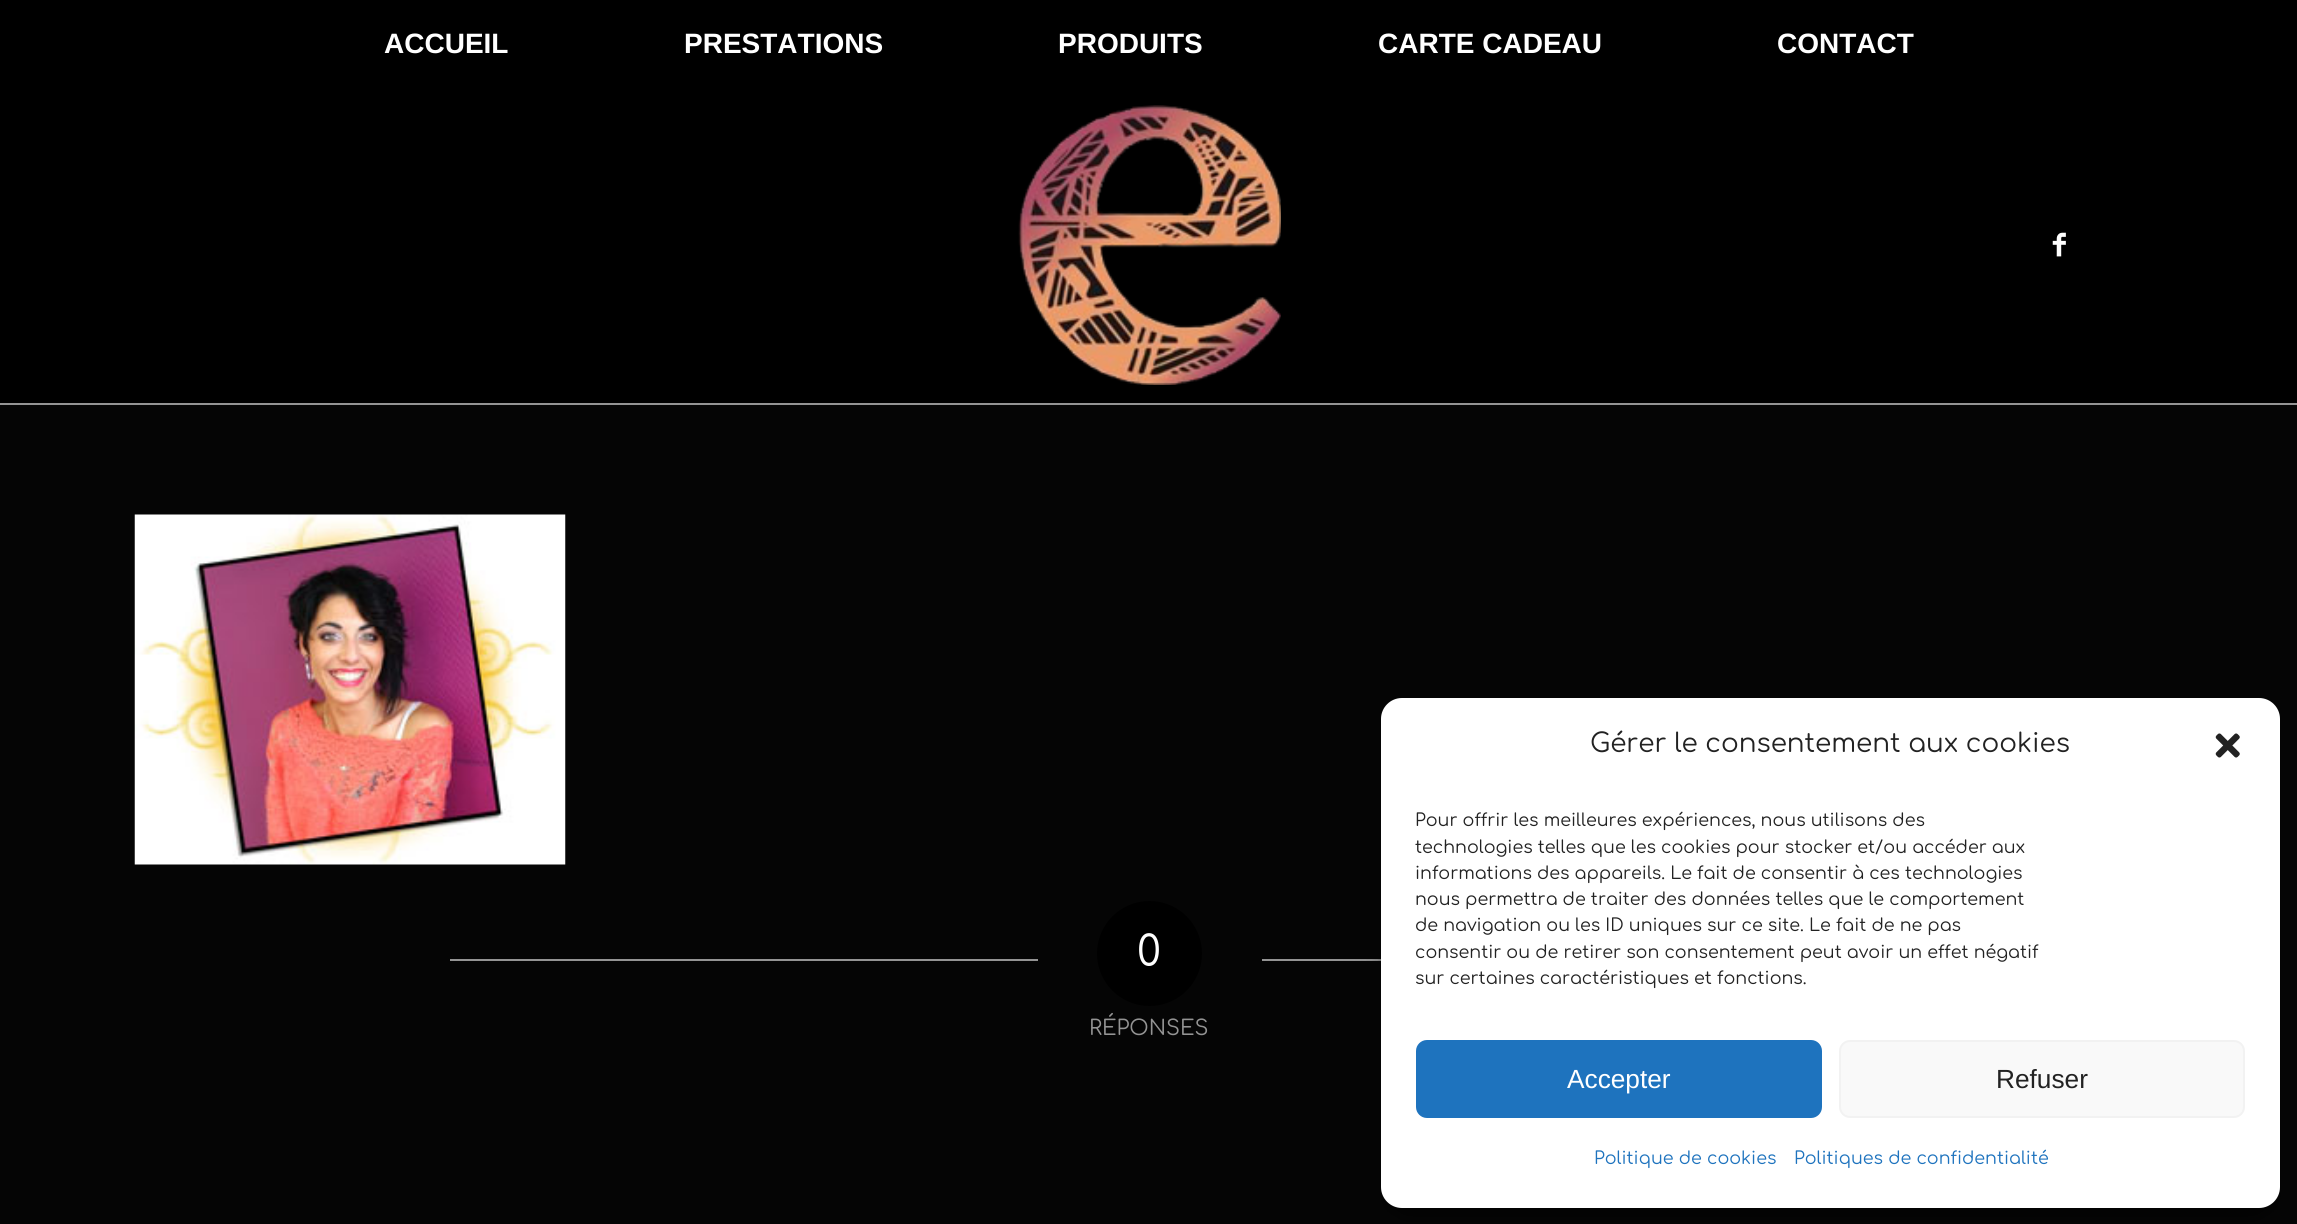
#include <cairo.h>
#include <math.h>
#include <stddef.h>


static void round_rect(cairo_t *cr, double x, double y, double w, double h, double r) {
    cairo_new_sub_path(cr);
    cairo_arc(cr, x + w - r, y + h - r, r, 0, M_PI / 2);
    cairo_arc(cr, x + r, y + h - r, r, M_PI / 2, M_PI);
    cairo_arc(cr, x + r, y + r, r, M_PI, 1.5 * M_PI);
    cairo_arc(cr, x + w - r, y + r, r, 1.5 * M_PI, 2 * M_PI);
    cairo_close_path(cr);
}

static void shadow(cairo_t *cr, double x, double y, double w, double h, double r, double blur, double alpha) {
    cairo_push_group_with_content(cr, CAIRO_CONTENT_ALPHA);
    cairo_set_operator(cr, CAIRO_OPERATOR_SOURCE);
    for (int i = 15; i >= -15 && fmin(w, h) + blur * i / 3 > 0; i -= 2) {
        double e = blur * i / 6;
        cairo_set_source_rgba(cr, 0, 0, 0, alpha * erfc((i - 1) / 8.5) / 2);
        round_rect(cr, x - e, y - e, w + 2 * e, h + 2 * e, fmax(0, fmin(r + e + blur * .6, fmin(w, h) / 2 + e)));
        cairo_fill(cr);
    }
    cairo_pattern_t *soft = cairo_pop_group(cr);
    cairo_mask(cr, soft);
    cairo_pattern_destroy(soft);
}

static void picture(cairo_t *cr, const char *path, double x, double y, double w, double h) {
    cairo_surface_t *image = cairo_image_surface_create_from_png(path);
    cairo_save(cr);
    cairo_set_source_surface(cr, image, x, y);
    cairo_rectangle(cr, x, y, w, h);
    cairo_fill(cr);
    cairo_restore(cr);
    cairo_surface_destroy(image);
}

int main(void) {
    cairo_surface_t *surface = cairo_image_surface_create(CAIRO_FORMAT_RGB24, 2297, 1224);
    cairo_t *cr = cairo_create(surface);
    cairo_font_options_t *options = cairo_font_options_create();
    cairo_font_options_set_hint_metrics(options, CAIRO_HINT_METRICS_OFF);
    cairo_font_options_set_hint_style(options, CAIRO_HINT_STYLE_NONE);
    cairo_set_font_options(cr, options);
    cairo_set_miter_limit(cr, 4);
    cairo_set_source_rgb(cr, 0, 0, 0);
    cairo_paint(cr);
    cairo_select_font_face(cr, "Liberation Sans", CAIRO_FONT_SLANT_NORMAL, CAIRO_FONT_WEIGHT_BOLD);
    cairo_set_font_size(cr, 28);
    cairo_set_source_rgb(cr, 1, 1, 1);
    cairo_move_to(cr, 384, 53);
    cairo_show_text(cr, "ACCUEIL");
    cairo_move_to(cr, 684, 53);
    cairo_show_text(cr, "PRESTATIONS");
    cairo_move_to(cr, 1058, 53);
    cairo_show_text(cr, "PRODUITS");
    cairo_move_to(cr, 1378, 53);
    cairo_show_text(cr, "CARTE CADEAU");
    cairo_move_to(cr, 1777, 53);
    cairo_show_text(cr, "CONTACT");
    picture(cr, "img1.png", 1018, 105, 263, 280);
    picture(cr, "img2.png", 2052, 232, 14, 25);
    cairo_set_source_rgb(cr, 0.02, 0.02, 0.02);
    cairo_rectangle(cr, 0, 405, 2297, 819);
    cairo_fill(cr);
    cairo_set_source_rgb(cr, 0.58, 0.58, 0.58);
    cairo_rectangle(cr, 0, 403, 2297, 2);
    cairo_fill(cr);
    picture(cr, "img3.png", 134, 514, 432, 351);
    cairo_rectangle(cr, 450, 959, 588, 2);
    cairo_fill(cr);
    cairo_set_source_rgb(cr, 0, 0, 0);
    cairo_arc(cr, 1149.5, 953.5, 52.5, 0, 2 * M_PI);
    cairo_fill(cr);
    cairo_select_font_face(cr, "Comfortaa", CAIRO_FONT_SLANT_NORMAL, CAIRO_FONT_WEIGHT_NORMAL);
    cairo_set_font_size(cr, 42);
    cairo_set_source_rgb(cr, 1, 1, 1);
    cairo_move_to(cr, 1137, 966);
    cairo_show_text(cr, "0");
    cairo_set_source_rgb(cr, 0.58, 0.58, 0.58);
    cairo_rectangle(cr, 1262, 959, 119, 2);
    cairo_fill(cr);
    cairo_set_font_size(cr, 21);
    cairo_move_to(cr, 1089, 1035);
    cairo_show_text(cr, "RÉPONSES");
    cairo_set_source_rgb(cr, 0, 0, 0);
    shadow(cr, 1381, 709, 899, 509, 21, 5, 0.23);
    shadow(cr, 1381, 716, 899, 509, 21, 17.5, 0.19);
    cairo_set_source_rgb(cr, 1, 1, 1);
    round_rect(cr, 1381, 698, 899, 510, 21);
    cairo_fill(cr);
    cairo_set_font_size(cr, 26.25);
    cairo_set_source_rgb(cr, 0.133, 0.133, 0.133);
    cairo_move_to(cr, 1590, 752);
    cairo_show_text(cr, "Gérer le consentement aux cookies");
    picture(cr, "img4.png", 2215, 733, 25, 25);
    cairo_set_font_size(cr, 17.5);
    cairo_move_to(cr, 1415, 826);
    cairo_show_text(cr, "Pour offrir les meilleures expériences, nous utilisons des");
    cairo_move_to(cr, 1415, 853);
    cairo_show_text(cr, "technologies telles que les cookies pour stocker et/ou accéder aux");
    cairo_move_to(cr, 1415, 879);
    cairo_show_text(cr, "informations des appareils. Le fait de consentir à ces technologies");
    cairo_move_to(cr, 1415, 905);
    cairo_show_text(cr, "nous permettra de traiter des données telles que le comportement");
    cairo_move_to(cr, 1415, 931);
    cairo_show_text(cr, "de navigation ou les ID uniques sur ce site. Le fait de ne pas");
    cairo_move_to(cr, 1415, 958);
    cairo_show_text(cr, "consentir ou de retirer son consentement peut avoir un effet négatif");
    cairo_move_to(cr, 1415, 984);
    cairo_show_text(cr, "sur certaines caractéristiques et fonctions.");
    cairo_set_source_rgb(cr, 0.118, 0.451, 0.745);
    round_rect(cr, 1417, 1041, 404, 76, 10);
    cairo_fill_preserve(cr);
    cairo_stroke(cr);
    cairo_select_font_face(cr, "Liberation Sans", CAIRO_FONT_SLANT_NORMAL, CAIRO_FONT_WEIGHT_NORMAL);
    cairo_set_font_size(cr, 26.25);
    cairo_set_source_rgb(cr, 1, 1, 1);
    cairo_move_to(cr, 1567, 1088);
    cairo_show_text(cr, "Accepter");
    cairo_set_source_rgb(cr, 0.976, 0.976, 0.976);
    round_rect(cr, 1840, 1041, 404, 76, 10);
    cairo_fill_preserve(cr);
    cairo_set_source_rgb(cr, 0.949, 0.949, 0.949);
    cairo_stroke(cr);
    cairo_set_source_rgb(cr, 0.133, 0.133, 0.133);
    cairo_move_to(cr, 1996, 1088);
    cairo_show_text(cr, "Refuser");
    cairo_select_font_face(cr, "Comfortaa", CAIRO_FONT_SLANT_NORMAL, CAIRO_FONT_WEIGHT_NORMAL);
    cairo_set_font_size(cr, 17.5);
    cairo_set_source_rgb(cr, 0.118, 0.451, 0.745);
    cairo_move_to(cr, 1594, 1164);
    cairo_show_text(cr, "Politique de cookies");
    cairo_move_to(cr, 1794, 1164);
    cairo_show_text(cr, "Politiques de confidentialité");
    cairo_surface_write_to_png(surface, "page.png");
    cairo_font_options_destroy(options);
    cairo_destroy(cr);
    cairo_surface_destroy(surface);
    return 0;
}
